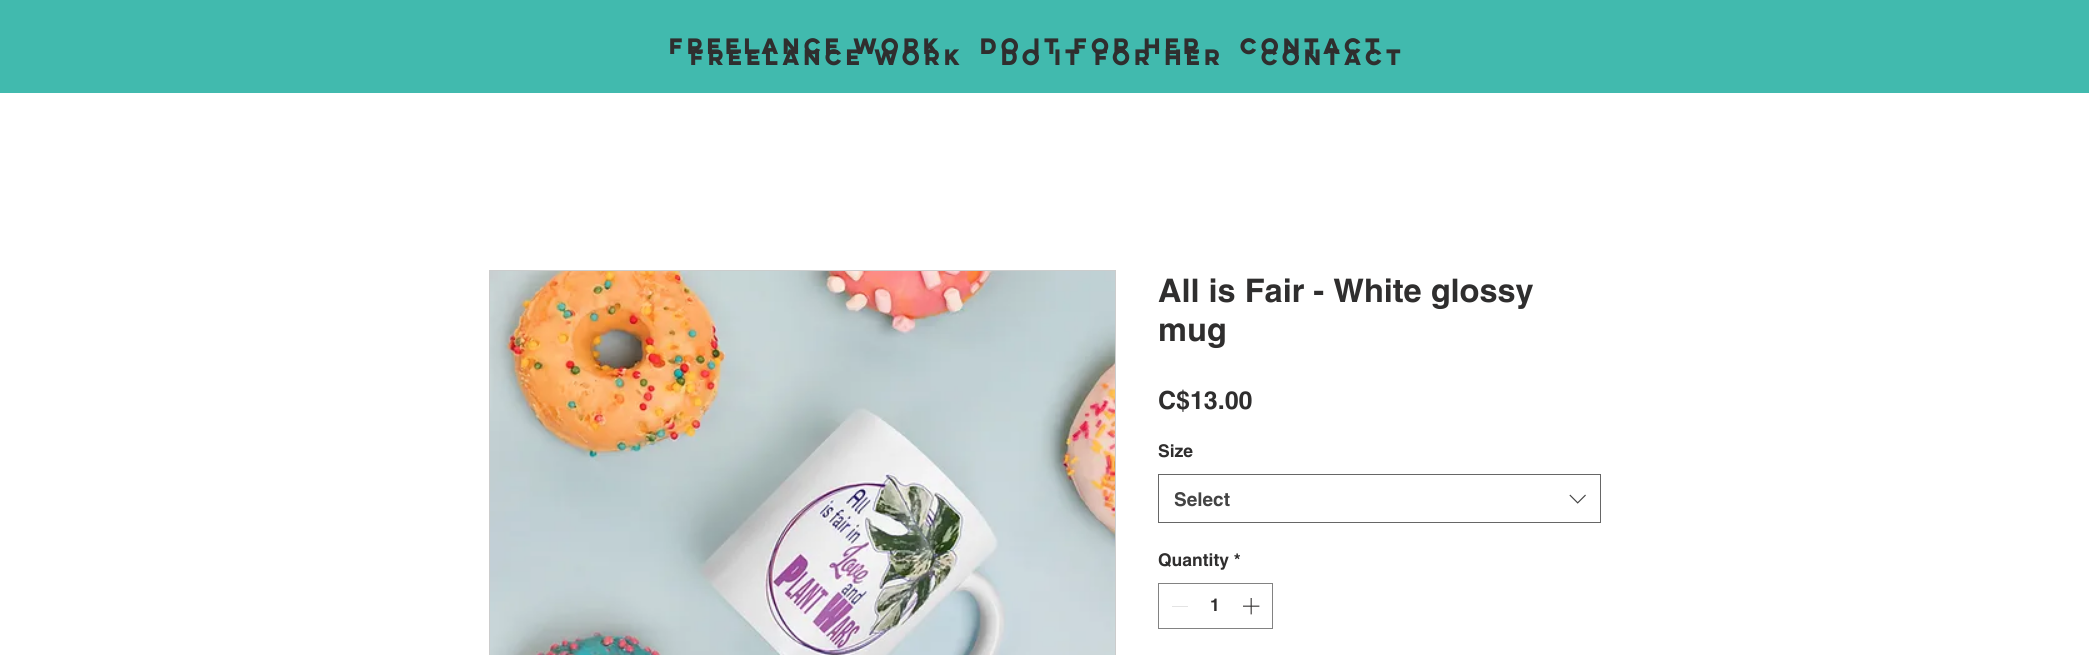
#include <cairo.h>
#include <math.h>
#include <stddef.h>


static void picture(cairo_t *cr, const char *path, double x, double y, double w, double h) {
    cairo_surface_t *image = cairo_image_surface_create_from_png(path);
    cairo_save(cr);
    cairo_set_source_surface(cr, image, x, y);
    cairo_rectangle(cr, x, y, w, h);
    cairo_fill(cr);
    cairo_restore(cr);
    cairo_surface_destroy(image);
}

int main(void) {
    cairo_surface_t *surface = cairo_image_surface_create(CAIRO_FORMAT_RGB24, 2089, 655);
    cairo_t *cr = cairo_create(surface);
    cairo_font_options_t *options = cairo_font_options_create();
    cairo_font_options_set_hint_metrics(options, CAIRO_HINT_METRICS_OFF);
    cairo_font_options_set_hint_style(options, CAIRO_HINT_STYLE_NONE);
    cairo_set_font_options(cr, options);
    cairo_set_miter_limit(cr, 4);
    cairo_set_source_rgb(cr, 1, 1, 1);
    cairo_paint(cr);
    cairo_set_source_rgb(cr, 0.255, 0.729, 0.682);
    cairo_rectangle(cr, 0, 0, 2089, 93);
    cairo_fill(cr);
    cairo_select_font_face(cr, "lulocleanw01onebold", CAIRO_FONT_SLANT_NORMAL, CAIRO_FONT_WEIGHT_BOLD);
    cairo_set_font_size(cr, 20);
    cairo_set_source_rgb(cr, 0.184, 0.18, 0.18);
    cairo_move_to(cr, 669, 54);
    cairo_show_text(cr, "Freelance Work");
    cairo_move_to(cr, 980, 54);
    cairo_show_text(cr, "Do it for Her");
    cairo_move_to(cr, 1240, 54);
    cairo_show_text(cr, "Contact");
    cairo_move_to(cr, 690, 65);
    cairo_show_text(cr, "Freelance Work");
    cairo_move_to(cr, 1001, 65);
    cairo_show_text(cr, "Do it for Her");
    cairo_move_to(cr, 1261, 65);
    cairo_show_text(cr, "Contact");
    cairo_rectangle(cr, 489.5, 270.5, 626, 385);
    cairo_set_source_rgb(cr, 0.8, 0.8, 0.8);
    cairo_set_line_width(cr, 1);
    cairo_stroke(cr);
    picture(cr, "img1.png", 490, 271, 625, 384);
    cairo_select_font_face(cr, "helvetica", CAIRO_FONT_SLANT_NORMAL, CAIRO_FONT_WEIGHT_BOLD);
    cairo_set_font_size(cr, 32.5);
    cairo_set_source_rgb(cr, 0.184, 0.18, 0.18);
    cairo_move_to(cr, 1158, 302);
    cairo_show_text(cr, "All is Fair - White glossy");
    cairo_move_to(cr, 1158, 341);
    cairo_show_text(cr, "mug");
    cairo_set_font_size(cr, 25);
    cairo_move_to(cr, 1158, 409);
    cairo_show_text(cr, "C$13.00");
    cairo_set_font_size(cr, 17.5);
    cairo_move_to(cr, 1158, 457);
    cairo_show_text(cr, "Size");
    cairo_rectangle(cr, 1158.5, 474.5, 442, 48);
    cairo_set_source_rgb(cr, 0.4, 0.4, 0.4);
    cairo_stroke(cr);
    cairo_set_font_size(cr, 19);
    cairo_set_source_rgb(cr, 0.267, 0.267, 0.267);
    cairo_move_to(cr, 1174, 506);
    cairo_show_text(cr, "Select");
    picture(cr, "img2.png", 1569, 494, 17, 10);
    cairo_set_font_size(cr, 17.5);
    cairo_set_source_rgb(cr, 0.184, 0.18, 0.18);
    cairo_move_to(cr, 1158, 566);
    cairo_show_text(cr, "Quantity *");
    cairo_rectangle(cr, 1158.5, 583.5, 114, 45);
    cairo_set_source_rgb(cr, 0.51, 0.51, 0.51);
    cairo_stroke(cr);
    cairo_set_source_rgb(cr, 0.89, 0.89, 0.89);
    cairo_rectangle(cr, 1172, 606, 16, 1);
    cairo_fill(cr);
    cairo_set_source_rgb(cr, 0.184, 0.18, 0.18);
    cairo_move_to(cr, 1210, 611);
    cairo_show_text(cr, "1");
    picture(cr, "img3.png", 1243, 598, 17, 17);
    cairo_surface_write_to_png(surface, "page.png");
    cairo_font_options_destroy(options);
    cairo_destroy(cr);
    cairo_surface_destroy(surface);
    return 0;
}
